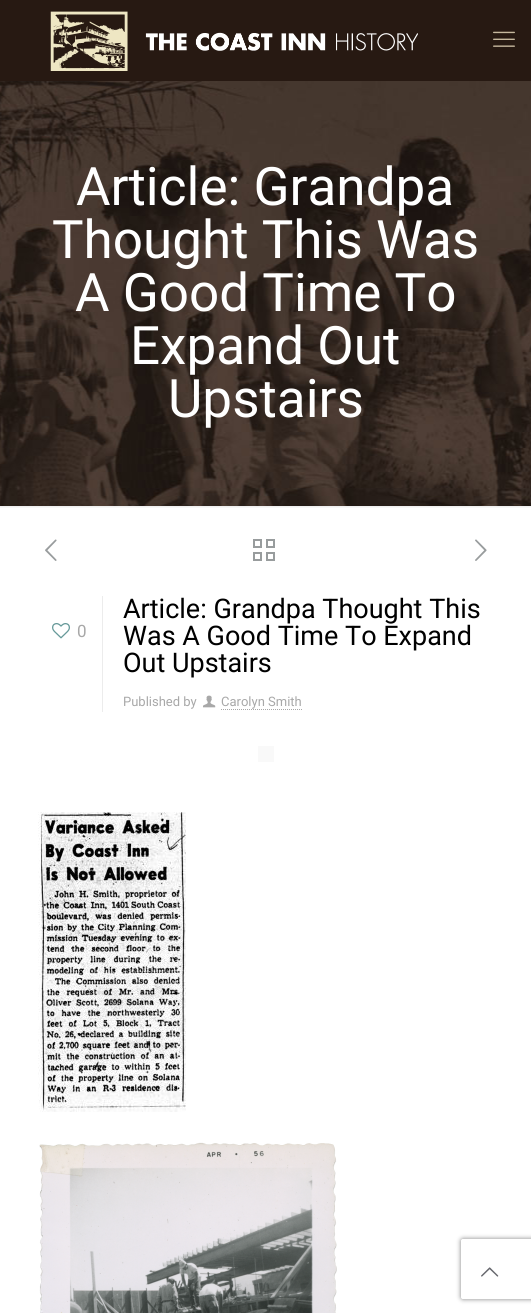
#include <cairo.h>
#include <math.h>
#include <stddef.h>


static void round_rect(cairo_t *cr, double x, double y, double w, double h, double r) {
    cairo_new_sub_path(cr);
    cairo_arc(cr, x + w - r, y + h - r, r, 0, M_PI / 2);
    cairo_arc(cr, x + r, y + h - r, r, M_PI / 2, M_PI);
    cairo_arc(cr, x + r, y + r, r, M_PI, 1.5 * M_PI);
    cairo_arc(cr, x + w - r, y + r, r, 1.5 * M_PI, 2 * M_PI);
    cairo_close_path(cr);
}

static void shadow(cairo_t *cr, double x, double y, double w, double h, double r, double blur, double alpha) {
    cairo_push_group_with_content(cr, CAIRO_CONTENT_ALPHA);
    cairo_set_operator(cr, CAIRO_OPERATOR_SOURCE);
    for (int i = 15; i >= -15 && fmin(w, h) + blur * i / 3 > 0; i -= 2) {
        double e = blur * i / 6;
        cairo_set_source_rgba(cr, 0, 0, 0, alpha * erfc((i - 1) / 8.5) / 2);
        round_rect(cr, x - e, y - e, w + 2 * e, h + 2 * e, fmax(0, fmin(r + e + blur * .6, fmin(w, h) / 2 + e)));
        cairo_fill(cr);
    }
    cairo_pattern_t *soft = cairo_pop_group(cr);
    cairo_mask(cr, soft);
    cairo_pattern_destroy(soft);
}

static void picture(cairo_t *cr, const char *path, double x, double y, double w, double h) {
    cairo_surface_t *image = cairo_image_surface_create_from_png(path);
    cairo_save(cr);
    cairo_set_source_surface(cr, image, x, y);
    cairo_rectangle(cr, x, y, w, h);
    cairo_fill(cr);
    cairo_restore(cr);
    cairo_surface_destroy(image);
}

int main(void) {
    cairo_surface_t *surface = cairo_image_surface_create(CAIRO_FORMAT_RGB24, 531, 1313);
    cairo_t *cr = cairo_create(surface);
    cairo_font_options_t *options = cairo_font_options_create();
    cairo_font_options_set_hint_metrics(options, CAIRO_HINT_METRICS_OFF);
    cairo_font_options_set_hint_style(options, CAIRO_HINT_STYLE_NONE);
    cairo_set_font_options(cr, options);
    cairo_set_miter_limit(cr, 4);
    cairo_set_source_rgb(cr, 1, 1, 1);
    cairo_paint(cr);
    picture(cr, "img1.png", 0, 81, 531, 425);
    cairo_set_source_rgb(cr, 0.153, 0.098, 0.071);
    cairo_rectangle(cr, 0, 0, 531, 81);
    cairo_fill(cr);
    picture(cr, "img2.png", 50, 11, 368, 60);
    picture(cr, "img3.png", 493, 31, 22, 16);
    cairo_select_font_face(cr, "Roboto", CAIRO_FONT_SLANT_NORMAL, CAIRO_FONT_WEIGHT_NORMAL);
    cairo_set_font_size(cr, 53);
    cairo_set_source_rgb(cr, 1, 1, 1);
    cairo_move_to(cr, 76, 205);
    cairo_show_text(cr, "Article: Grandpa");
    cairo_move_to(cr, 52, 258);
    cairo_show_text(cr, "Thought This Was");
    cairo_move_to(cr, 75, 311);
    cairo_show_text(cr, "A Good Time To");
    cairo_move_to(cr, 130, 364);
    cairo_show_text(cr, "Expand Out");
    cairo_move_to(cr, 168, 417);
    cairo_show_text(cr, "Upstairs");
    picture(cr, "img4.png", 0, 506, 531, 2);
    picture(cr, "img5.png", 45, 539, 12, 22);
    picture(cr, "img6.png", 253, 539, 22, 22);
    picture(cr, "img7.png", 475, 539, 12, 22);
    picture(cr, "img8.png", 52, 623, 18, 16);
    cairo_set_font_size(cr, 17);
    cairo_set_source_rgb(cr, 0.659, 0.659, 0.659);
    cairo_move_to(cr, 77, 637);
    cairo_show_text(cr, "0");
    cairo_set_source_rgb(cr, 0.922, 0.922, 0.922);
    cairo_rectangle(cr, 102, 596, 1, 116);
    cairo_fill(cr);
    cairo_set_font_size(cr, 27);
    cairo_set_source_rgb(cr, 0, 0, 0);
    cairo_move_to(cr, 123, 618);
    cairo_show_text(cr, "Article: Grandpa Thought This");
    cairo_move_to(cr, 123, 645);
    cairo_show_text(cr, "Was A Good Time To Expand");
    cairo_move_to(cr, 123, 672);
    cairo_show_text(cr, "Out Upstairs");
    cairo_set_font_size(cr, 13);
    cairo_set_source_rgb(cr, 0.659, 0.659, 0.659);
    cairo_move_to(cr, 123, 706);
    cairo_show_text(cr, "Published by");
    picture(cr, "img9.png", 203, 695, 13, 13);
    cairo_move_to(cr, 221, 706);
    cairo_show_text(cr, "Carolyn Smith");
    cairo_new_path(cr);
    cairo_move_to(cr, 221, 709.5);
    cairo_line_to(cr, 302, 709.5);
    cairo_set_line_width(cr, 1);
    cairo_set_dash(cr, (double[]){1, 1}, 2, 0);
    cairo_stroke(cr);
    cairo_set_source_rgb(cr, 0.973, 0.973, 0.973);
    cairo_rectangle(cr, 258, 746, 16, 16);
    cairo_fill(cr);
    picture(cr, "img10.png", 38, 812, 148, 300);
    picture(cr, "img11.png", 39, 1142, 298, 171);
    cairo_save(cr);
    cairo_set_fill_rule(cr, CAIRO_FILL_RULE_EVEN_ODD);
    cairo_new_path(cr);
    cairo_move_to(cr, 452, 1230);
    cairo_line_to(cr, 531, 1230);
    cairo_line_to(cr, 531, 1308);
    cairo_line_to(cr, 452, 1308);
    cairo_close_path(cr);
    cairo_move_to(cr, 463, 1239);
    cairo_line_to(cr, 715, 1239);
    cairo_curve_to(cr, 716, 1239, 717, 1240, 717, 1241);
    cairo_line_to(cr, 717, 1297);
    cairo_curve_to(cr, 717, 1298, 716, 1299, 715, 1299);
    cairo_line_to(cr, 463, 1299);
    cairo_curve_to(cr, 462, 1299, 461, 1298, 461, 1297);
    cairo_line_to(cr, 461, 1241);
    cairo_curve_to(cr, 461, 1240, 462, 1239, 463, 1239);
    cairo_close_path(cr);
    cairo_clip(cr);
    cairo_set_source_rgb(cr, 0.502, 0.502, 0.502);
    shadow(cr, 461, 1239, 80, 60, 2, 2.5, 1);
    cairo_restore(cr);
    picture(cr, "img12.png", 481, 1267, 18, 10);
    cairo_surface_write_to_png(surface, "page.png");
    cairo_font_options_destroy(options);
    cairo_destroy(cr);
    cairo_surface_destroy(surface);
    return 0;
}
